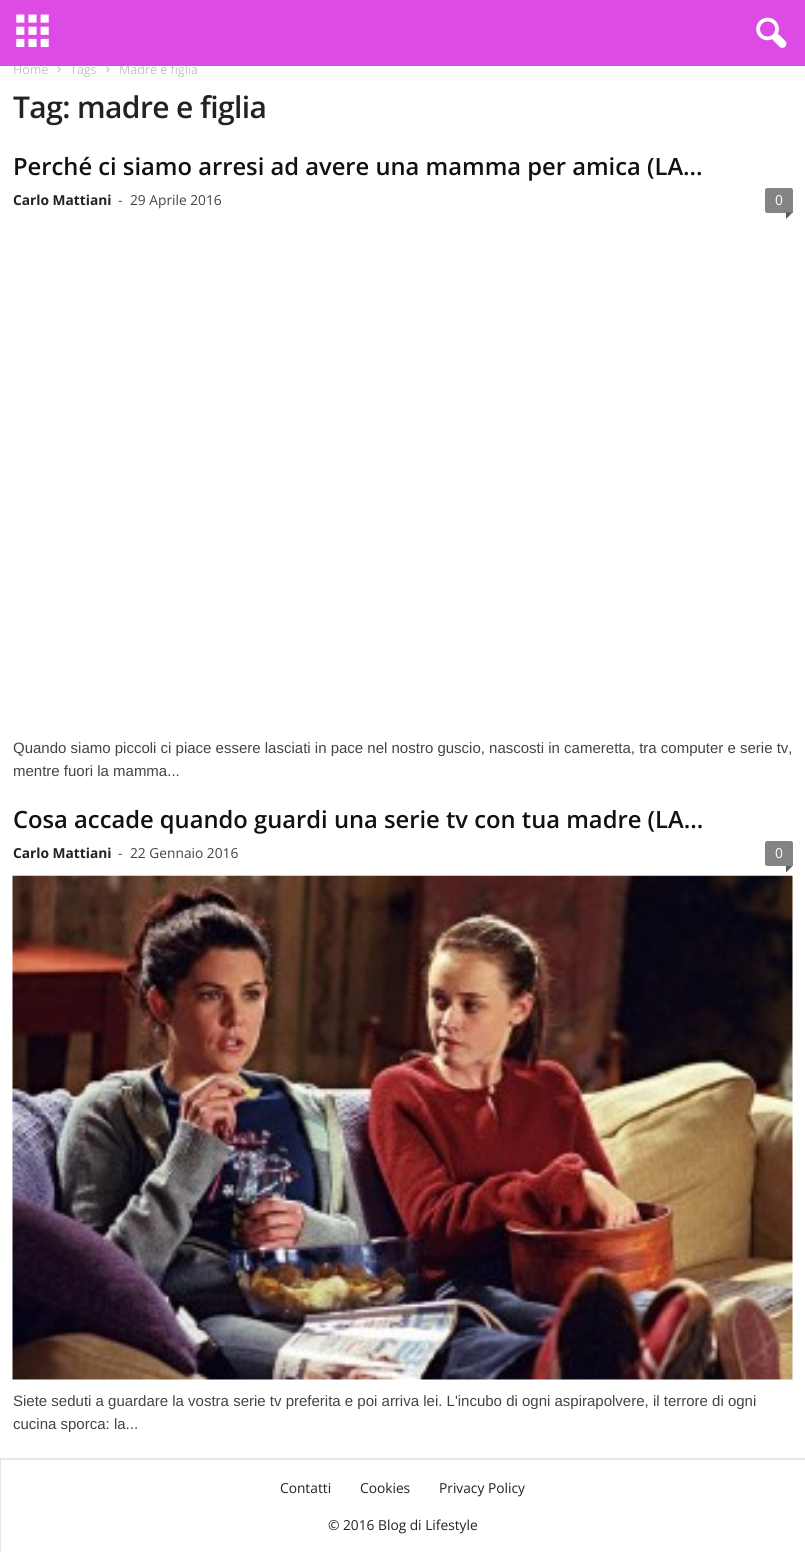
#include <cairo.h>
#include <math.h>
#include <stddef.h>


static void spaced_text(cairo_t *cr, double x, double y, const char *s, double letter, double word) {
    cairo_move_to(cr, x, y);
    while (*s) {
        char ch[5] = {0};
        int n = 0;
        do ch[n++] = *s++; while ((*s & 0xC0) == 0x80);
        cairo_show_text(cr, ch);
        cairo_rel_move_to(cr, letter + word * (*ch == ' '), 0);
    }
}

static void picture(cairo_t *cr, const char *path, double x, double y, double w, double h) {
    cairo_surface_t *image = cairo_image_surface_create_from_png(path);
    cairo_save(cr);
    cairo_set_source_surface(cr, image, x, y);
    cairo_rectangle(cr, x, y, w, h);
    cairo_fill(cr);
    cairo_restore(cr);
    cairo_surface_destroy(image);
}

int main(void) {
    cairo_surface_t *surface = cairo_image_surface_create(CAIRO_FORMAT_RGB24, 805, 1552);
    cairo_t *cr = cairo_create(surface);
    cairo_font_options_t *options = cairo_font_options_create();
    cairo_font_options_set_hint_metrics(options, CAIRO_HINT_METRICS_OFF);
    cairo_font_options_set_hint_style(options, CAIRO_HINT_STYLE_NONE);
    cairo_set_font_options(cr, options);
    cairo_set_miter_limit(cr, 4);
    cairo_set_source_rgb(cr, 1, 1, 1);
    cairo_paint(cr);
    cairo_select_font_face(cr, "Open Sans", CAIRO_FONT_SLANT_NORMAL, CAIRO_FONT_WEIGHT_NORMAL);
    cairo_set_font_size(cr, 12.5);
    cairo_set_source_rgb(cr, 0.765, 0.765, 0.765);
    cairo_move_to(cr, 13, 74);
    cairo_show_text(cr, "Home");
    cairo_move_to(cr, 70, 74);
    cairo_show_text(cr, "Tags");
    cairo_move_to(cr, 119, 74);
    cairo_show_text(cr, "Madre e figlia");
    cairo_set_source_rgb(cr, 0.867, 0.294, 0.898);
    cairo_rectangle(cr, 0, 0, 805, 66);
    cairo_fill(cr);
    picture(cr, "img1.png", 16, 14, 33, 34);
    picture(cr, "img2.png", 756, 17, 31, 31);
    picture(cr, "img3.png", 57, 66, 4, 7);
    picture(cr, "img4.png", 106, 66, 4, 7);
    cairo_select_font_face(cr, "Open Sans SemiBold", CAIRO_FONT_SLANT_NORMAL, CAIRO_FONT_WEIGHT_NORMAL);
    cairo_set_font_size(cr, 30);
    cairo_set_source_rgb(cr, 0.133, 0.133, 0.133);
    spaced_text(cr, 13, 118, "Tag: madre e figlia", -0.6, 0);
    cairo_set_font_size(cr, 23.75);
    cairo_set_source_rgb(cr, 0.067, 0.067, 0.067);
    cairo_move_to(cr, 13, 175);
    cairo_show_text(cr, "Perché ci siamo arresi ad avere una mamma per amica (LA...");
    cairo_select_font_face(cr, "Open Sans", CAIRO_FONT_SLANT_NORMAL, CAIRO_FONT_WEIGHT_BOLD);
    cairo_set_font_size(cr, 13.75);
    cairo_set_source_rgb(cr, 0.133, 0.133, 0.133);
    cairo_move_to(cr, 13, 205);
    cairo_show_text(cr, "Carlo Mattiani");
    cairo_select_font_face(cr, "Open Sans", CAIRO_FONT_SLANT_NORMAL, CAIRO_FONT_WEIGHT_NORMAL);
    cairo_set_source_rgb(cr, 0.267, 0.267, 0.267);
    cairo_move_to(cr, 118, 205);
    cairo_show_text(cr, "-");
    cairo_move_to(cr, 130, 205);
    cairo_show_text(cr, "29 Aprile 2016");
    cairo_set_source_rgb(cr, 0.518, 0.518, 0.518);
    cairo_new_path(cr);
    cairo_move_to(cr, 767.5, 188);
    cairo_line_to(cr, 790.5, 188);
    cairo_curve_to(cr, 792, 188, 793, 189, 793, 190.5);
    cairo_line_to(cr, 793, 213);
    cairo_line_to(cr, 767.5, 213);
    cairo_curve_to(cr, 766, 213, 765, 212, 765, 210.5);
    cairo_line_to(cr, 765, 190.5);
    cairo_curve_to(cr, 765, 189, 766, 188, 767.5, 188);
    cairo_close_path(cr);
    cairo_fill(cr);
    cairo_set_source_rgb(cr, 1, 1, 1);
    cairo_move_to(cr, 775, 205);
    cairo_show_text(cr, "0");
    cairo_set_source_rgb(cr, 0.357, 0.357, 0.357);
    cairo_new_path(cr);
    cairo_move_to(cr, 786, 212.5);
    cairo_line_to(cr, 792.5, 212.5);
    cairo_line_to(cr, 786, 219);
    cairo_close_path(cr);
    cairo_fill(cr);
    cairo_select_font_face(cr, "Liberation Sans", CAIRO_FONT_SLANT_NORMAL, CAIRO_FONT_WEIGHT_NORMAL);
    cairo_set_font_size(cr, 15);
    cairo_set_source_rgb(cr, 0.267, 0.267, 0.267);
    cairo_move_to(cr, 13, 753);
    cairo_show_text(cr, "Quando siamo piccoli ci piace essere lasciati in pace nel nostro guscio, nascosti in cameretta, tra computer e serie tv,");
    cairo_move_to(cr, 13, 776);
    cairo_show_text(cr, "mentre fuori la mamma...");
    cairo_select_font_face(cr, "Open Sans SemiBold", CAIRO_FONT_SLANT_NORMAL, CAIRO_FONT_WEIGHT_NORMAL);
    cairo_set_font_size(cr, 23.75);
    cairo_set_source_rgb(cr, 0.067, 0.067, 0.067);
    cairo_move_to(cr, 13, 828);
    cairo_show_text(cr, "Cosa accade quando guardi una serie tv con tua madre (LA...");
    cairo_select_font_face(cr, "Open Sans", CAIRO_FONT_SLANT_NORMAL, CAIRO_FONT_WEIGHT_BOLD);
    cairo_set_font_size(cr, 13.75);
    cairo_set_source_rgb(cr, 0.133, 0.133, 0.133);
    cairo_move_to(cr, 13, 858);
    cairo_show_text(cr, "Carlo Mattiani");
    cairo_select_font_face(cr, "Open Sans", CAIRO_FONT_SLANT_NORMAL, CAIRO_FONT_WEIGHT_NORMAL);
    cairo_set_source_rgb(cr, 0.267, 0.267, 0.267);
    cairo_move_to(cr, 118, 858);
    cairo_show_text(cr, "-");
    cairo_move_to(cr, 130, 858);
    cairo_show_text(cr, "22 Gennaio 2016");
    cairo_set_source_rgb(cr, 0.518, 0.518, 0.518);
    cairo_new_path(cr);
    cairo_move_to(cr, 767.5, 841);
    cairo_line_to(cr, 790.5, 841);
    cairo_curve_to(cr, 792, 841, 793, 842, 793, 843.5);
    cairo_line_to(cr, 793, 866);
    cairo_line_to(cr, 767.5, 866);
    cairo_curve_to(cr, 766, 866, 765, 865, 765, 863.5);
    cairo_line_to(cr, 765, 843.5);
    cairo_curve_to(cr, 765, 842, 766, 841, 767.5, 841);
    cairo_close_path(cr);
    cairo_fill(cr);
    cairo_set_source_rgb(cr, 1, 1, 1);
    cairo_move_to(cr, 775, 858);
    cairo_show_text(cr, "0");
    cairo_set_source_rgb(cr, 0.357, 0.357, 0.357);
    cairo_new_path(cr);
    cairo_move_to(cr, 786, 866);
    cairo_line_to(cr, 792.5, 866);
    cairo_line_to(cr, 786, 872.5);
    cairo_close_path(cr);
    cairo_fill(cr);
    picture(cr, "img5.png", 12, 875, 781, 505);
    cairo_select_font_face(cr, "Liberation Sans", CAIRO_FONT_SLANT_NORMAL, CAIRO_FONT_WEIGHT_NORMAL);
    cairo_set_font_size(cr, 15);
    cairo_set_source_rgb(cr, 0.267, 0.267, 0.267);
    cairo_move_to(cr, 13, 1406);
    cairo_show_text(cr, "Siete seduti a guardare la vostra serie tv preferita e poi arriva lei. L'incubo di ogni aspirapolvere, il terrore di ogni");
    cairo_move_to(cr, 13, 1429);
    cairo_show_text(cr, "cucina sporca: la...");
    cairo_set_source_rgb(cr, 0.902, 0.902, 0.902);
    cairo_rectangle(cr, 0, 1458, 805, 2);
    cairo_fill(cr);
    cairo_rectangle(cr, 0, 1460, 1, 92);
    cairo_fill(cr);
    cairo_select_font_face(cr, "Open Sans", CAIRO_FONT_SLANT_NORMAL, CAIRO_FONT_WEIGHT_NORMAL);
    cairo_set_font_size(cr, 13.75);
    cairo_set_source_rgb(cr, 0.133, 0.133, 0.133);
    cairo_move_to(cr, 280, 1493);
    cairo_show_text(cr, "Contatti");
    cairo_move_to(cr, 360, 1493);
    cairo_show_text(cr, "Cookies");
    cairo_move_to(cr, 439, 1493);
    cairo_show_text(cr, "Privacy Policy");
    cairo_move_to(cr, 328, 1530);
    cairo_show_text(cr, "© 2016 Blog di Lifestyle");
    cairo_surface_write_to_png(surface, "page.png");
    cairo_font_options_destroy(options);
    cairo_destroy(cr);
    cairo_surface_destroy(surface);
    return 0;
}
